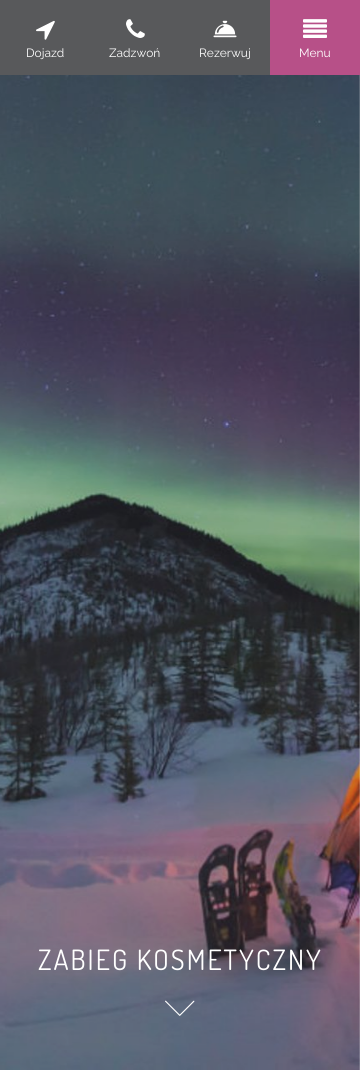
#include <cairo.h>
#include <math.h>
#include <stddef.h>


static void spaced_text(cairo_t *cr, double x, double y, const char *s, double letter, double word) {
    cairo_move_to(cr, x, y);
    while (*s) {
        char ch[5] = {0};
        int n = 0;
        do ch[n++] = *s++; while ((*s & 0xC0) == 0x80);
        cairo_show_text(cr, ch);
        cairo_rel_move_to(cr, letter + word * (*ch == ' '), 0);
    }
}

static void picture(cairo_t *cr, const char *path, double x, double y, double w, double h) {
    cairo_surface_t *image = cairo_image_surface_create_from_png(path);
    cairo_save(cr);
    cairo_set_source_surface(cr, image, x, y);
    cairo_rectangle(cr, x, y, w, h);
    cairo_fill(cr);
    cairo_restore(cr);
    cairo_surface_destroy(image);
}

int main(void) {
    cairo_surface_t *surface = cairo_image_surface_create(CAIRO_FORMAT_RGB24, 360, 1070);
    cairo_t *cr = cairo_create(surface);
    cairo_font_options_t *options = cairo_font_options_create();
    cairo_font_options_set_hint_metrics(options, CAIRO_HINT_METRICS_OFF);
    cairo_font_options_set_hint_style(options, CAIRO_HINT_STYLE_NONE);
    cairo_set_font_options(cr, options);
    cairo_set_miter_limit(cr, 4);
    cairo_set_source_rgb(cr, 1, 1, 1);
    cairo_paint(cr);
    cairo_set_source_rgb(cr, 0.345, 0.349, 0.357);
    cairo_rectangle(cr, 0, 0, 270, 75);
    cairo_fill(cr);
    picture(cr, "img1.png", 36, 20, 19, 20);
    cairo_select_font_face(cr, "Raleway Thin", CAIRO_FONT_SLANT_NORMAL, CAIRO_FONT_WEIGHT_NORMAL);
    cairo_set_font_size(cr, 12);
    cairo_set_source_rgb(cr, 1, 1, 1);
    cairo_move_to(cr, 26, 57);
    cairo_show_text(cr, "Dojazd");
    picture(cr, "img2.png", 126, 19, 19, 19);
    cairo_move_to(cr, 109, 57);
    cairo_show_text(cr, "Zadzwoń");
    picture(cr, "img3.png", 213, 20, 24, 18);
    cairo_move_to(cr, 199, 57);
    cairo_show_text(cr, "Rezerwuj");
    cairo_set_source_rgb(cr, 0.718, 0.314, 0.533);
    cairo_rectangle(cr, 270, 0, 90, 75);
    cairo_fill(cr);
    picture(cr, "img4.png", 303, 19, 24, 19);
    cairo_set_source_rgb(cr, 1, 1, 1);
    cairo_move_to(cr, 299, 57);
    cairo_show_text(cr, "Menu");
    picture(cr, "img5.png", 0, 75, 360, 995);
    cairo_select_font_face(cr, "Dosis", CAIRO_FONT_SLANT_NORMAL, CAIRO_FONT_WEIGHT_NORMAL);
    cairo_set_font_size(cr, 28);
    spaced_text(cr, 38, 970, "ZABIEG KOSMETYCZNY", 2, 0);
    picture(cr, "img6.png", 165, 1000, 30, 16);
    cairo_surface_write_to_png(surface, "page.png");
    cairo_font_options_destroy(options);
    cairo_destroy(cr);
    cairo_surface_destroy(surface);
    return 0;
}
